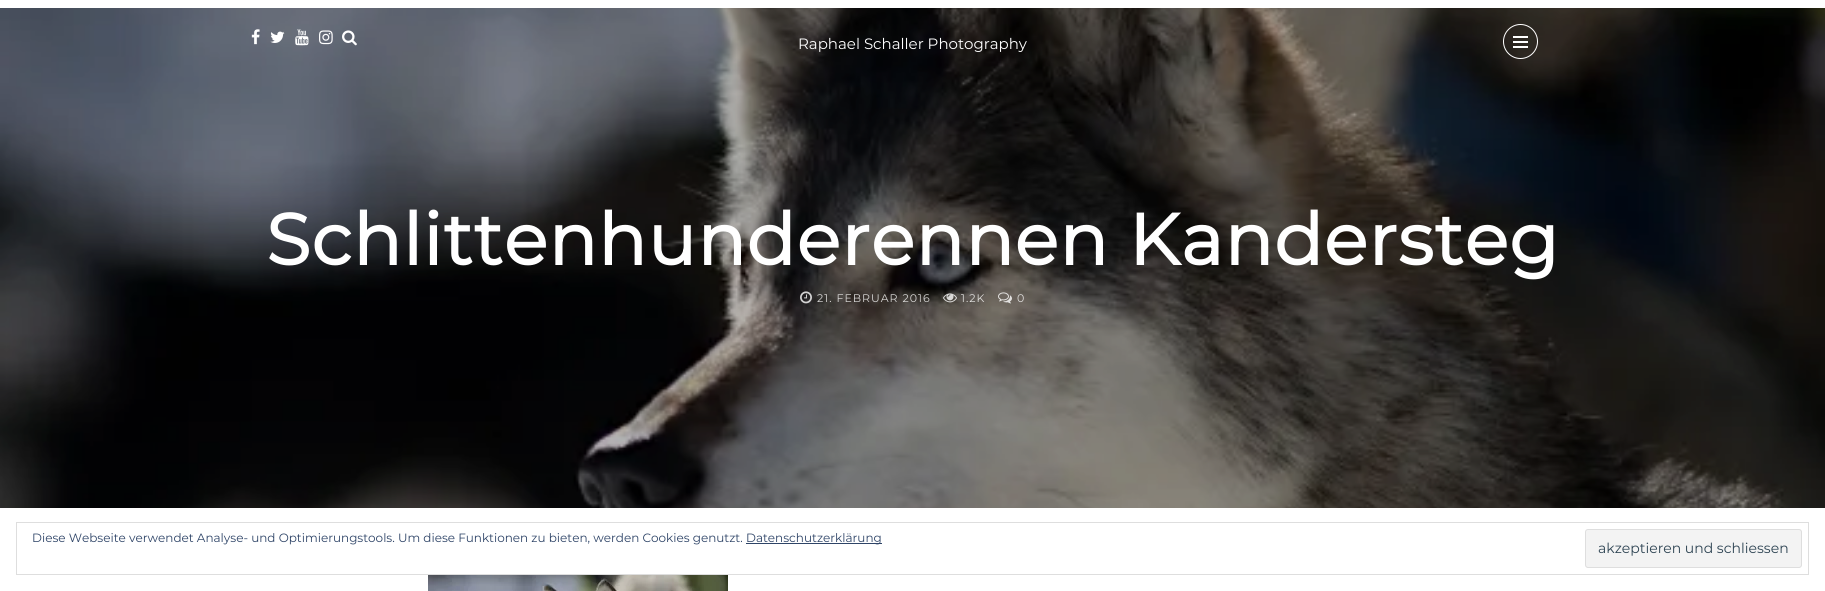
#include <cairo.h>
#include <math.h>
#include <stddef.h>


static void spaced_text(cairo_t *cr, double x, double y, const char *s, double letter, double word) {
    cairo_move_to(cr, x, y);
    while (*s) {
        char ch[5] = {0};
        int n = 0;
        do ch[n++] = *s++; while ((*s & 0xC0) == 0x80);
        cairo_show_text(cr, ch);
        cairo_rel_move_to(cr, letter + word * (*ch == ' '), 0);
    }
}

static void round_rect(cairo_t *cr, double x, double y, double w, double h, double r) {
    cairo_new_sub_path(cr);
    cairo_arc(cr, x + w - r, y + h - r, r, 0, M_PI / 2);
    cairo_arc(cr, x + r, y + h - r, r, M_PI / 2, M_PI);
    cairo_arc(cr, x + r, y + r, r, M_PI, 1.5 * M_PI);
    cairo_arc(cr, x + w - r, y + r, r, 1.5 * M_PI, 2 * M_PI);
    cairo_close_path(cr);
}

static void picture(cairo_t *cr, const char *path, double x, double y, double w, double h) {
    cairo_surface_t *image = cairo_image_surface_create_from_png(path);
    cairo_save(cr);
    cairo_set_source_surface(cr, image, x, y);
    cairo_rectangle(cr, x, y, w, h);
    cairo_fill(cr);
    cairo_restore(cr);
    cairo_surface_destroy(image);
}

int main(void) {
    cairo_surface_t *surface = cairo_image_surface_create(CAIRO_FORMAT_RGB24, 1825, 591);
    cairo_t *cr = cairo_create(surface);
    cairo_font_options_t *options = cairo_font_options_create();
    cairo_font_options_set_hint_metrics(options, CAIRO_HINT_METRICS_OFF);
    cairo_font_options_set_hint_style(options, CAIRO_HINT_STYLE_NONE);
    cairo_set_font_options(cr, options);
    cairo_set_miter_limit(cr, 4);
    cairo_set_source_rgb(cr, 1, 1, 1);
    cairo_paint(cr);
    picture(cr, "img6.png", 0, 8, 1825, 500);
    picture(cr, "img1.png", 251, 29, 9, 16);
    picture(cr, "img2.png", 270, 31, 15, 12);
    picture(cr, "img3.png", 295, 29, 14, 17);
    picture(cr, "img4.png", 319, 30, 14, 15);
    picture(cr, "img5.png", 342, 30, 15, 16);
    cairo_select_font_face(cr, "Montserrat Thin", CAIRO_FONT_SLANT_NORMAL, CAIRO_FONT_WEIGHT_NORMAL);
    cairo_set_font_size(cr, 15);
    cairo_set_source_rgb(cr, 1, 1, 1);
    cairo_move_to(cr, 798, 49);
    cairo_show_text(cr, "Raphael Schaller Photography");
    cairo_new_path(cr);
    cairo_arc(cr, 1520.5, 41.5, 17, 0, 2 * M_PI);
    cairo_set_line_width(cr, 1);
    cairo_stroke(cr);
    cairo_rectangle(cr, 1513, 41, 15, 2);
    cairo_fill(cr);
    cairo_rectangle(cr, 1513, 36, 15, 2);
    cairo_fill(cr);
    cairo_rectangle(cr, 1513, 46, 15, 2);
    cairo_fill(cr);
    cairo_select_font_face(cr, "Montserrat", CAIRO_FONT_SLANT_NORMAL, CAIRO_FONT_WEIGHT_BOLD);
    cairo_set_font_size(cr, 72);
    spaced_text(cr, 266, 265, "Schlittenhunderennen Kandersteg", 1, 0);
    picture(cr, "img7.png", 800, 291, 12, 13);
    cairo_select_font_face(cr, "Montserrat Thin", CAIRO_FONT_SLANT_NORMAL, CAIRO_FONT_WEIGHT_NORMAL);
    cairo_set_font_size(cr, 11);
    cairo_set_source_rgb(cr, 0.843, 0.839, 0.835);
    spaced_text(cr, 817, 302, "21. FEBRUAR 2016", 1, 0);
    picture(cr, "img8.png", 943, 293, 14, 10);
    cairo_set_source_rgb(cr, 0.875, 0.871, 0.863);
    spaced_text(cr, 961, 302, "1.2K", 1, 0);
    picture(cr, "img9.png", 998, 292, 14, 12);
    spaced_text(cr, 1017, 302, "0", 1, 0);
    cairo_rectangle(cr, 16.5, 522.5, 1792, 52);
    cairo_set_source_rgb(cr, 0.871, 0.871, 0.871);
    cairo_stroke(cr);
    cairo_set_font_size(cr, 12);
    cairo_set_source_rgb(cr, 0.18, 0.267, 0.404);
    cairo_move_to(cr, 32, 542);
    cairo_show_text(cr, "Diese Webseite verwendet Analyse- und Optimierungstools. Um diese Funktionen zu bieten, werden Cookies genutzt.");
    cairo_rectangle(cr, 746, 543, 136, 1);
    cairo_fill(cr);
    cairo_move_to(cr, 746, 542);
    cairo_show_text(cr, "Datenschutzerklärung");
    cairo_set_source_rgb(cr, 0.953, 0.953, 0.953);
    round_rect(cr, 1585.5, 529.5, 216, 38, 2.5);
    cairo_fill_preserve(cr);
    cairo_set_source_rgb(cr, 0.871, 0.871, 0.871);
    cairo_stroke(cr);
    cairo_set_font_size(cr, 14);
    cairo_set_source_rgb(cr, 0.18, 0.267, 0.325);
    cairo_move_to(cr, 1598, 553);
    cairo_show_text(cr, "akzeptieren und schliessen");
    picture(cr, "img10.png", 428, 575, 300, 16);
    cairo_surface_write_to_png(surface, "page.png");
    cairo_font_options_destroy(options);
    cairo_destroy(cr);
    cairo_surface_destroy(surface);
    return 0;
}
